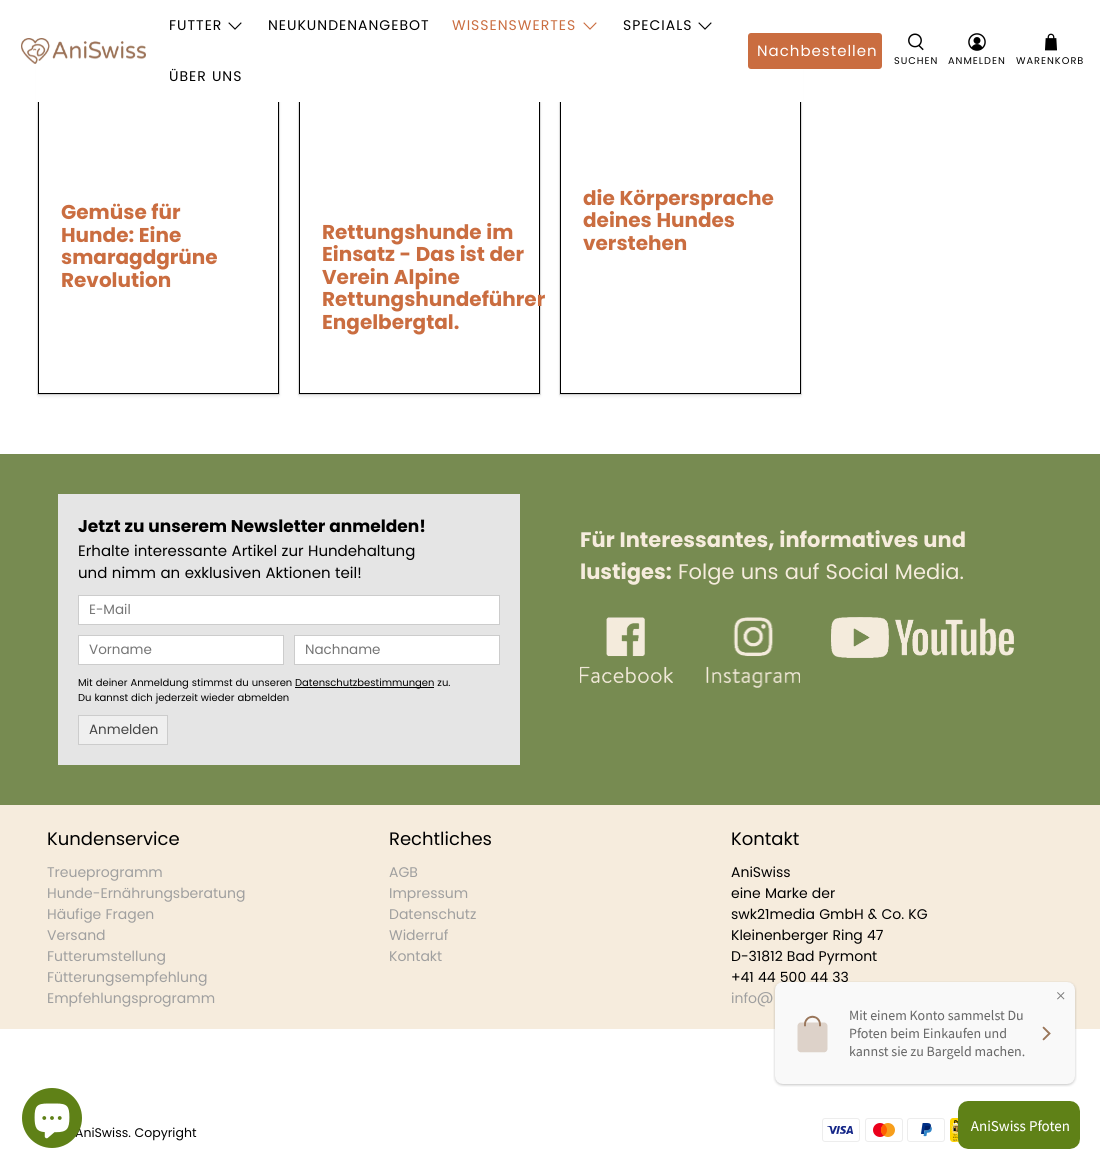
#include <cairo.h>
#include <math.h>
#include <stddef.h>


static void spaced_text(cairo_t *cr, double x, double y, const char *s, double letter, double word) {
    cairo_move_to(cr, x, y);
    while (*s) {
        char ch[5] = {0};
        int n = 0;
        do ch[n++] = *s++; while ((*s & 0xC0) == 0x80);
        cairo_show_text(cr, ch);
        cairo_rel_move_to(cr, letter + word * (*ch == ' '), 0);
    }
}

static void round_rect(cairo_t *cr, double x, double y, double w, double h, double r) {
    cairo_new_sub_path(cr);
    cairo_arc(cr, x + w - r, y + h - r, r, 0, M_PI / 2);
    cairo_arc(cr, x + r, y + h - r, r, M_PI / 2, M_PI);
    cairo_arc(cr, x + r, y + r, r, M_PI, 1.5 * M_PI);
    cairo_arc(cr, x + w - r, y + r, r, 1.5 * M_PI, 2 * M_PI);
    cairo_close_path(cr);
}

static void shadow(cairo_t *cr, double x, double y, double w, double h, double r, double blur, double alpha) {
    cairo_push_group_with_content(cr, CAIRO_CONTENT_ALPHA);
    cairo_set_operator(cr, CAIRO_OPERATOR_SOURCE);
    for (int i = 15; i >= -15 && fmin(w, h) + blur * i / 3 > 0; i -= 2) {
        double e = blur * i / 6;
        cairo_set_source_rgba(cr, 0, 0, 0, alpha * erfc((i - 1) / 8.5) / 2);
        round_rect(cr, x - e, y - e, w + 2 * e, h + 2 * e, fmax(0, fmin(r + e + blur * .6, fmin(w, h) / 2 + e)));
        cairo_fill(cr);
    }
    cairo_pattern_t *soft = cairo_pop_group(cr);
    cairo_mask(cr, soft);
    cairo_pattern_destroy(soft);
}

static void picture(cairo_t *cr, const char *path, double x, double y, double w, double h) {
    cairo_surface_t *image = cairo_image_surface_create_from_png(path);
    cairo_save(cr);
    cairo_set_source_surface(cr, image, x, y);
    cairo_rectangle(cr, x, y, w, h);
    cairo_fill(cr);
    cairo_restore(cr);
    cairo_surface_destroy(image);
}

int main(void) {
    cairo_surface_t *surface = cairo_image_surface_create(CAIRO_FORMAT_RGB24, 1100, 1169);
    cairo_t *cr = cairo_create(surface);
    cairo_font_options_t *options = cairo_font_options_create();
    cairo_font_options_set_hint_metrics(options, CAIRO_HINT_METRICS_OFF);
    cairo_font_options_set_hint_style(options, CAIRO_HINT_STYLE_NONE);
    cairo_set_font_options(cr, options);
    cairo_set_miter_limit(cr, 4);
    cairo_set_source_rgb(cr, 1, 1, 1);
    cairo_paint(cr);
    cairo_rectangle(cr, 37.5, 43.5, 242, 351);
    cairo_set_source_rgb(cr, 0.902, 0.902, 0.902);
    cairo_set_line_width(cr, 1);
    cairo_stroke(cr);
    cairo_save(cr);
    cairo_set_fill_rule(cr, CAIRO_FILL_RULE_EVEN_ODD);
    cairo_new_path(cr);
    cairo_move_to(cr, 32, 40);
    cairo_line_to(cr, 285, 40);
    cairo_line_to(cr, 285, 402);
    cairo_line_to(cr, 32, 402);
    cairo_close_path(cr);
    cairo_move_to(cr, 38, 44);
    cairo_line_to(cr, 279, 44);
    cairo_line_to(cr, 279, 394);
    cairo_line_to(cr, 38, 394);
    cairo_close_path(cr);
    cairo_clip(cr);
    cairo_set_source_rgb(cr, 0, 0, 0);
    shadow(cr, 38, 46, 241, 350, 0, 1.5, 0.1);
    cairo_restore(cr);
    cairo_rectangle(cr, 38.5, 44.5, 240, 349);
    cairo_set_source_rgb(cr, 0, 0, 0);
    cairo_stroke(cr);
    cairo_rectangle(cr, 298.5, 43.5, 242, 351);
    cairo_set_source_rgb(cr, 0.902, 0.902, 0.902);
    cairo_stroke(cr);
    cairo_save(cr);
    cairo_set_fill_rule(cr, CAIRO_FILL_RULE_EVEN_ODD);
    cairo_new_path(cr);
    cairo_move_to(cr, 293, 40);
    cairo_line_to(cr, 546, 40);
    cairo_line_to(cr, 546, 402);
    cairo_line_to(cr, 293, 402);
    cairo_close_path(cr);
    cairo_move_to(cr, 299, 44);
    cairo_line_to(cr, 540, 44);
    cairo_line_to(cr, 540, 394);
    cairo_line_to(cr, 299, 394);
    cairo_close_path(cr);
    cairo_clip(cr);
    cairo_set_source_rgb(cr, 0, 0, 0);
    shadow(cr, 299, 46, 241, 350, 0, 1.5, 0.1);
    cairo_restore(cr);
    cairo_rectangle(cr, 299.5, 44.5, 240, 349);
    cairo_set_source_rgb(cr, 0, 0, 0);
    cairo_stroke(cr);
    cairo_rectangle(cr, 559.5, 43.5, 242, 351);
    cairo_set_source_rgb(cr, 0.902, 0.902, 0.902);
    cairo_stroke(cr);
    cairo_save(cr);
    cairo_set_fill_rule(cr, CAIRO_FILL_RULE_EVEN_ODD);
    cairo_new_path(cr);
    cairo_move_to(cr, 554, 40);
    cairo_line_to(cr, 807, 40);
    cairo_line_to(cr, 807, 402);
    cairo_line_to(cr, 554, 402);
    cairo_close_path(cr);
    cairo_move_to(cr, 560, 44);
    cairo_line_to(cr, 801, 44);
    cairo_line_to(cr, 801, 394);
    cairo_line_to(cr, 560, 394);
    cairo_close_path(cr);
    cairo_clip(cr);
    cairo_set_source_rgb(cr, 0, 0, 0);
    shadow(cr, 560, 46, 241, 350, 0, 1.5, 0.1);
    cairo_restore(cr);
    cairo_rectangle(cr, 560.5, 44.5, 240, 349);
    cairo_set_source_rgb(cr, 0, 0, 0);
    cairo_stroke(cr);
    cairo_set_source_rgb(cr, 1, 1, 1);
    cairo_rectangle(cr, 36, 43, 767, 59);
    cairo_fill(cr);
    picture(cr, "img1.png", 21, 38, 125, 26);
    cairo_select_font_face(cr, "Poppins", CAIRO_FONT_SLANT_NORMAL, CAIRO_FONT_WEIGHT_NORMAL);
    cairo_set_font_size(cr, 14);
    cairo_set_source_rgb(cr, 0, 0, 0);
    spaced_text(cr, 169, 30, "FUTTER", 1, 0);
    picture(cr, "img2.png", 228, 22, 14, 8);
    spaced_text(cr, 268, 30, "NEUKUNDENANGEBOT", 1, 0);
    cairo_set_source_rgb(cr, 0.792, 0.427, 0.251);
    spaced_text(cr, 452, 30, "WISSENSWERTES", 1, 0);
    picture(cr, "img3.png", 583, 22, 14, 8);
    cairo_set_source_rgb(cr, 0, 0, 0);
    spaced_text(cr, 623, 30, "SPECIALS", 1, 0);
    picture(cr, "img2.png", 698, 22, 14, 8);
    spaced_text(cr, 169, 81, "ÜBER UNS", 1, 0);
    cairo_set_source_rgb(cr, 0.792, 0.427, 0.251);
    round_rect(cr, 748, 33, 134, 36, 3);
    cairo_fill(cr);
    cairo_set_font_size(cr, 15);
    cairo_set_source_rgb(cr, 1, 1, 1);
    spaced_text(cr, 757, 56, "Nachbestellen", 1, 0);
    picture(cr, "img4.png", 908, 33, 16, 18);
    cairo_set_font_size(cr, 9.75);
    cairo_set_source_rgb(cr, 0, 0, 0);
    spaced_text(cr, 894, 64, "SUCHEN", 1, 0);
    picture(cr, "img5.png", 968, 33, 18, 18);
    spaced_text(cr, 948, 64, "ANMELDEN", 1, 0);
    picture(cr, "img6.png", 1045, 33, 12, 18);
    spaced_text(cr, 1016, 64, "WARENKORB", 1, 0);
    cairo_select_font_face(cr, "Poppins", CAIRO_FONT_SLANT_NORMAL, CAIRO_FONT_WEIGHT_BOLD);
    cairo_set_font_size(cr, 20);
    cairo_set_source_rgb(cr, 0.792, 0.427, 0.251);
    cairo_move_to(cr, 61, 219);
    cairo_show_text(cr, "Gemüse für");
    cairo_move_to(cr, 61, 242);
    cairo_show_text(cr, "Hunde: Eine");
    cairo_move_to(cr, 61, 264);
    cairo_show_text(cr, "smaragdgrüne");
    cairo_move_to(cr, 61, 287);
    cairo_show_text(cr, "Revolution");
    cairo_move_to(cr, 322, 239);
    cairo_show_text(cr, "Rettungshunde im");
    cairo_move_to(cr, 322, 261);
    cairo_show_text(cr, "Einsatz - Das ist der");
    cairo_move_to(cr, 322, 284);
    cairo_show_text(cr, "Verein Alpine");
    cairo_move_to(cr, 322, 306);
    cairo_show_text(cr, "Rettungshundeführer");
    cairo_move_to(cr, 322, 329);
    cairo_show_text(cr, "Engelbergtal.");
    cairo_move_to(cr, 583, 205);
    cairo_show_text(cr, "die Körpersprache");
    cairo_move_to(cr, 583, 227);
    cairo_show_text(cr, "deines Hundes");
    cairo_move_to(cr, 583, 250);
    cairo_show_text(cr, "verstehen");
    cairo_set_source_rgb(cr, 0.467, 0.545, 0.318);
    cairo_rectangle(cr, 0, 454, 1100, 351);
    cairo_fill(cr);
    cairo_set_source_rgb(cr, 0.898, 0.898, 0.898);
    cairo_rectangle(cr, 58, 494, 462, 271);
    cairo_fill(cr);
    cairo_set_font_size(cr, 17);
    cairo_set_source_rgb(cr, 0, 0, 0);
    cairo_move_to(cr, 78, 532);
    cairo_show_text(cr, "Jetzt zu unserem Newsletter anmelden!");
    cairo_select_font_face(cr, "Poppins", CAIRO_FONT_SLANT_NORMAL, CAIRO_FONT_WEIGHT_NORMAL);
    cairo_set_font_size(cr, 15);
    cairo_move_to(cr, 78, 556);
    cairo_show_text(cr, "Erhalte interessante Artikel zur Hundehaltung");
    cairo_move_to(cr, 78, 578);
    cairo_show_text(cr, "und nimm an exklusiven Aktionen teil!");
    cairo_set_source_rgb(cr, 1, 1, 1);
    cairo_rectangle(cr, 78.5, 595.5, 421, 29);
    cairo_fill_preserve(cr);
    cairo_set_source_rgb(cr, 0.8, 0.8, 0.8);
    cairo_stroke(cr);
    cairo_set_font_size(cr, 13.5);
    cairo_set_source_rgb(cr, 0.459, 0.459, 0.459);
    cairo_move_to(cr, 89, 614);
    cairo_show_text(cr, "E-Mail");
    cairo_set_source_rgb(cr, 1, 1, 1);
    cairo_rectangle(cr, 78.5, 635.5, 205, 29);
    cairo_fill_preserve(cr);
    cairo_set_source_rgb(cr, 0.8, 0.8, 0.8);
    cairo_stroke(cr);
    cairo_set_source_rgb(cr, 0.459, 0.459, 0.459);
    cairo_move_to(cr, 89, 654);
    cairo_show_text(cr, "Vorname");
    cairo_set_source_rgb(cr, 1, 1, 1);
    cairo_rectangle(cr, 294.5, 635.5, 205, 29);
    cairo_fill_preserve(cr);
    cairo_set_source_rgb(cr, 0.8, 0.8, 0.8);
    cairo_stroke(cr);
    cairo_set_source_rgb(cr, 0.459, 0.459, 0.459);
    cairo_move_to(cr, 305, 654);
    cairo_show_text(cr, "Nachname");
    cairo_set_font_size(cr, 10);
    cairo_set_source_rgb(cr, 0, 0, 0);
    cairo_move_to(cr, 78, 686);
    cairo_show_text(cr, "Mit deiner Anmeldung stimmst du unseren");
    cairo_rectangle(cr, 295, 687, 139, 1);
    cairo_fill(cr);
    cairo_move_to(cr, 295, 686);
    cairo_show_text(cr, "Datenschutzbestimmungen zu.");
    cairo_move_to(cr, 78, 701);
    cairo_show_text(cr, "Du kannst dich jederzeit wieder abmelden");
    cairo_set_source_rgb(cr, 0.937, 0.937, 0.937);
    cairo_rectangle(cr, 78.5, 715.5, 89, 29);
    cairo_fill_preserve(cr);
    cairo_set_source_rgb(cr, 0.8, 0.8, 0.8);
    cairo_stroke(cr);
    cairo_set_font_size(cr, 13.5);
    cairo_set_source_rgb(cr, 0.267, 0.267, 0.267);
    cairo_move_to(cr, 89, 734);
    cairo_show_text(cr, "Anmelden");
    cairo_select_font_face(cr, "Poppins", CAIRO_FONT_SLANT_NORMAL, CAIRO_FONT_WEIGHT_BOLD);
    cairo_set_font_size(cr, 21);
    cairo_set_source_rgb(cr, 0.961, 0.922, 0.867);
    cairo_move_to(cr, 580, 547);
    cairo_show_text(cr, "Für Interessantes, informatives und");
    cairo_move_to(cr, 580, 579);
    cairo_show_text(cr, "lustiges:");
    cairo_select_font_face(cr, "Poppins", CAIRO_FONT_SLANT_NORMAL, CAIRO_FONT_WEIGHT_NORMAL);
    cairo_move_to(cr, 678, 579);
    cairo_show_text(cr, "Folge uns auf Social Media.");
    picture(cr, "img7.png", 580, 617, 93, 66);
    picture(cr, "img8.png", 706, 617, 94, 71);
    picture(cr, "img9.png", 831, 617, 183, 41);
    cairo_rectangle(cr, 0, 805, 1100, 224);
    cairo_fill(cr);
    cairo_set_font_size(cr, 18);
    cairo_set_source_rgb(cr, 0, 0, 0);
    cairo_move_to(cr, 47, 845);
    cairo_show_text(cr, "Kundenservice");
    cairo_set_font_size(cr, 14);
    cairo_set_source_rgb(cr, 0.624, 0.624, 0.624);
    cairo_move_to(cr, 47, 877);
    cairo_show_text(cr, "Treueprogramm");
    cairo_move_to(cr, 47, 898);
    cairo_show_text(cr, "Hunde-Ernährungsberatung");
    cairo_move_to(cr, 47, 919);
    cairo_show_text(cr, "Häufige Fragen");
    cairo_move_to(cr, 47, 940);
    cairo_show_text(cr, "Versand");
    cairo_move_to(cr, 47, 961);
    cairo_show_text(cr, "Futterumstellung");
    cairo_move_to(cr, 47, 982);
    cairo_show_text(cr, "Fütterungsempfehlung");
    cairo_move_to(cr, 47, 1003);
    cairo_show_text(cr, "Empfehlungsprogramm");
    cairo_set_font_size(cr, 18);
    cairo_set_source_rgb(cr, 0, 0, 0);
    cairo_move_to(cr, 389, 845);
    cairo_show_text(cr, "Rechtliches");
    cairo_set_font_size(cr, 14);
    cairo_set_source_rgb(cr, 0.624, 0.624, 0.624);
    cairo_move_to(cr, 389, 877);
    cairo_show_text(cr, "AGB");
    cairo_move_to(cr, 389, 898);
    cairo_show_text(cr, "Impressum");
    cairo_move_to(cr, 389, 919);
    cairo_show_text(cr, "Datenschutz");
    cairo_move_to(cr, 389, 940);
    cairo_show_text(cr, "Widerruf");
    cairo_move_to(cr, 389, 961);
    cairo_show_text(cr, "Kontakt");
    cairo_set_font_size(cr, 18);
    cairo_set_source_rgb(cr, 0, 0, 0);
    cairo_move_to(cr, 731, 845);
    cairo_show_text(cr, "Kontakt");
    cairo_set_font_size(cr, 14);
    cairo_move_to(cr, 731, 877);
    cairo_show_text(cr, "AniSwiss");
    cairo_move_to(cr, 731, 898);
    cairo_show_text(cr, "eine Marke der");
    cairo_move_to(cr, 731, 919);
    cairo_show_text(cr, "swk21media GmbH & Co. KG");
    cairo_move_to(cr, 731, 940);
    cairo_show_text(cr, "Kleinenberger Ring 47");
    cairo_move_to(cr, 731, 961);
    cairo_show_text(cr, "D-31812 Bad Pyrmont");
    cairo_move_to(cr, 731, 982);
    cairo_show_text(cr, "+41 44 500 44 33");
    cairo_set_source_rgb(cr, 0.624, 0.624, 0.624);
    cairo_move_to(cr, 731, 1003);
    cairo_show_text(cr, "info@");
    cairo_set_font_size(cr, 12.5);
    cairo_set_source_rgb(cr, 0, 0, 0);
    cairo_move_to(cr, 75, 1137);
    cairo_show_text(cr, "AniSwiss. Copyright");
    picture(cr, "img10.png", 822, 1118, 38, 24);
    picture(cr, "img11.png", 865, 1118, 38, 24);
    picture(cr, "img12.png", 907, 1118, 38, 24);
    picture(cr, "img13.png", 950, 1118, 9, 24);
    picture(cr, "img14.png", 773, 981, 304, 106);
    cairo_set_source_rgb(cr, 0.373, 0.506, 0.09);
    cairo_arc(cr, 52, 1118, 30, 0, 2 * M_PI);
    cairo_fill(cr);
    picture(cr, "img15.png", 34, 1103, 36, 36);
    picture(cr, "img16.png", 958, 1101, 122, 48);
    cairo_surface_write_to_png(surface, "page.png");
    cairo_font_options_destroy(options);
    cairo_destroy(cr);
    cairo_surface_destroy(surface);
    return 0;
}
